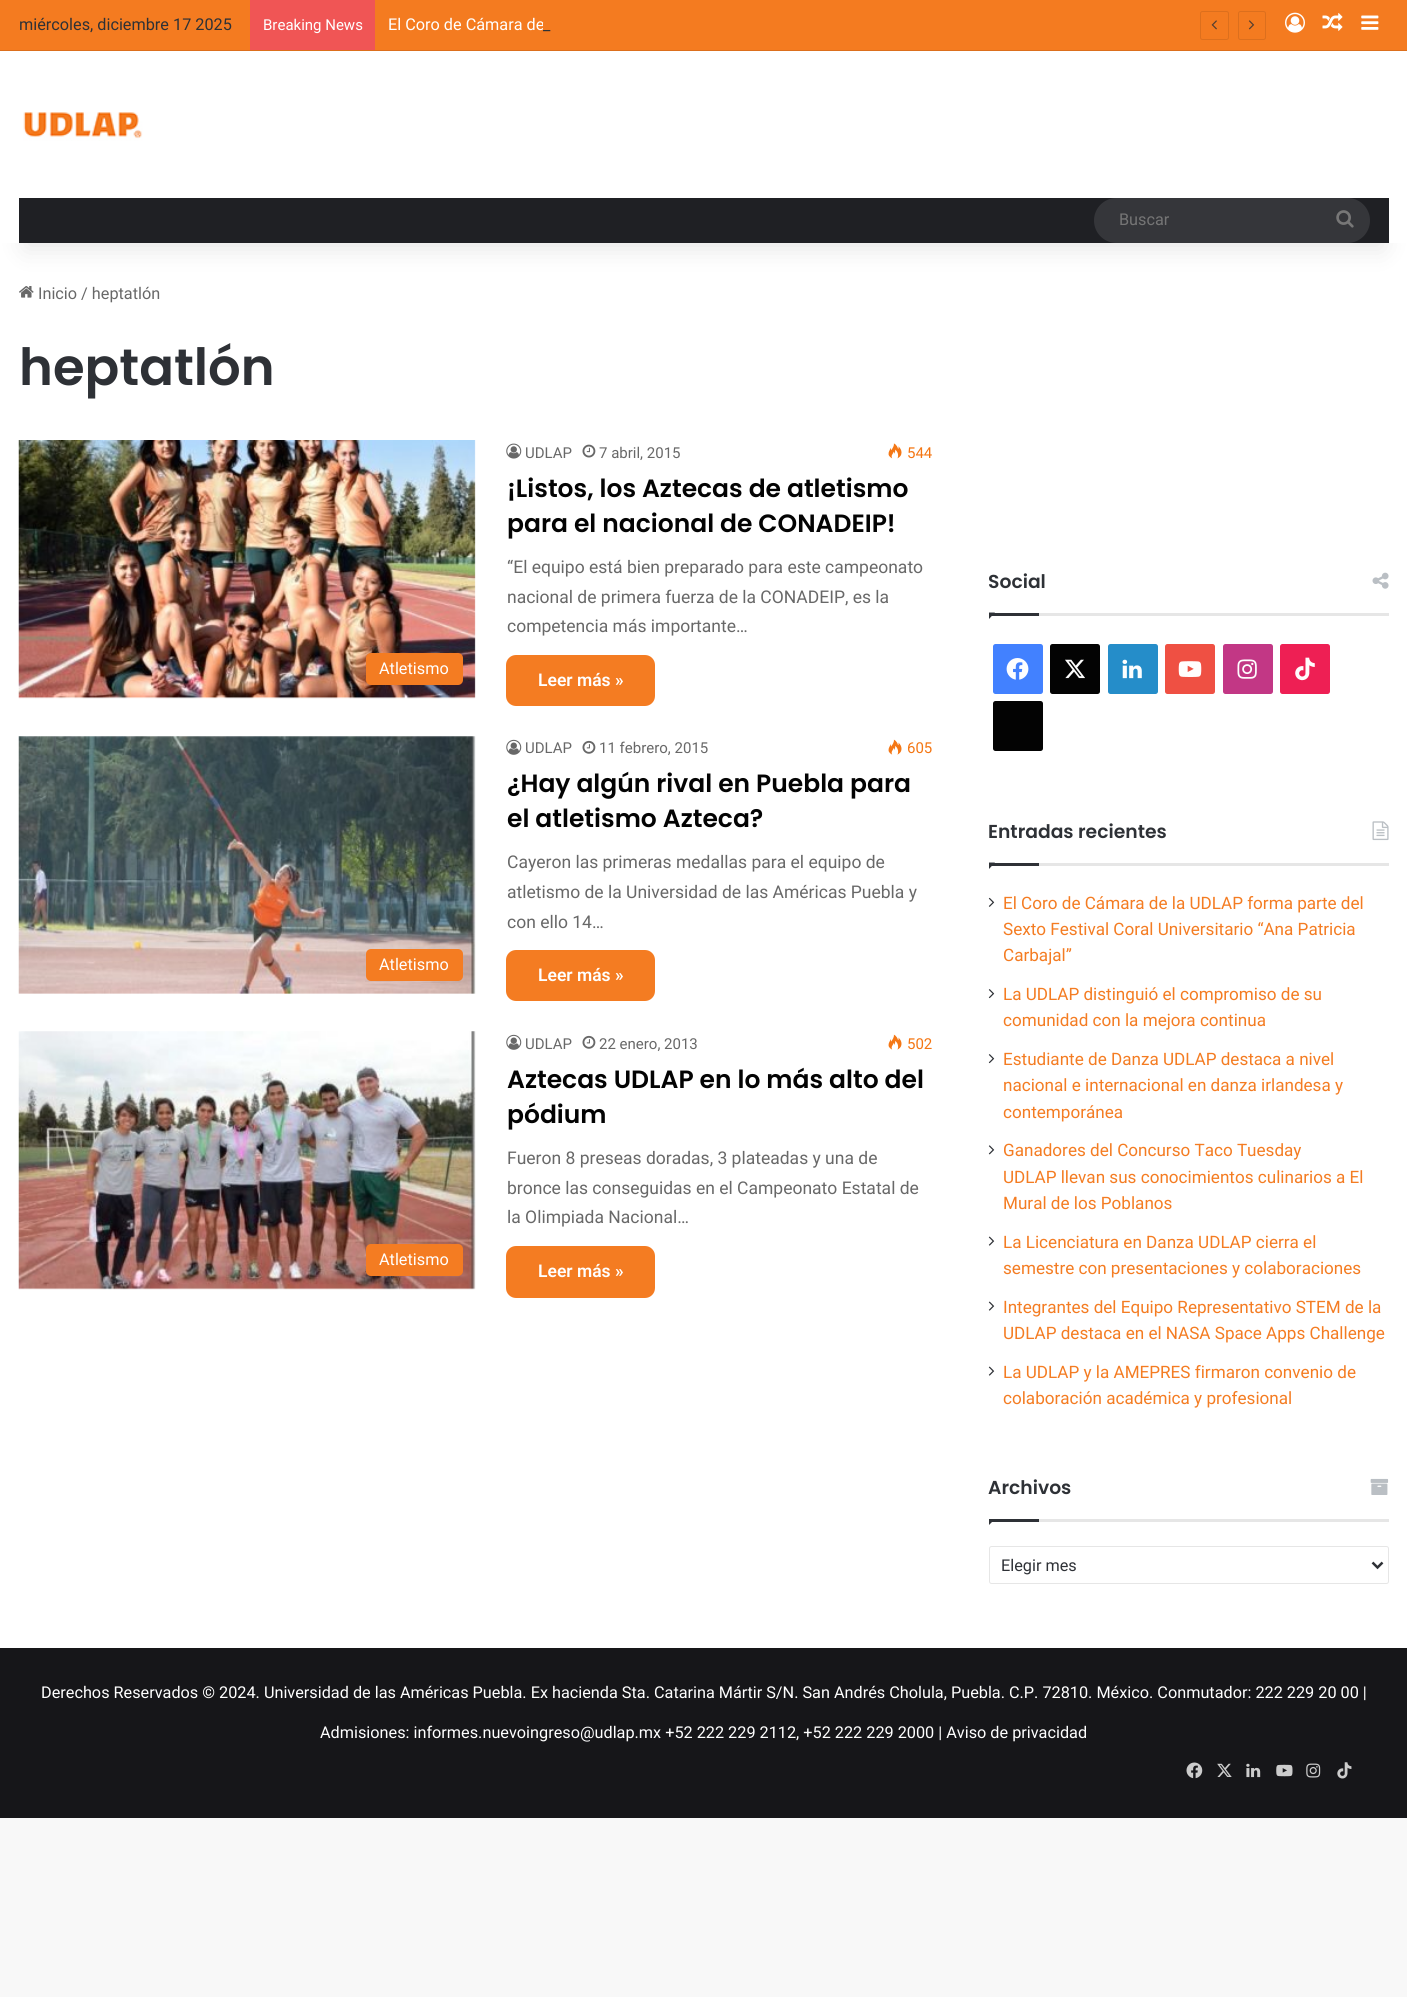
#include <cairo.h>
#include <math.h>
#include <stddef.h>


static void round_rect(cairo_t *cr, double x, double y, double w, double h, double r) {
    cairo_new_sub_path(cr);
    cairo_arc(cr, x + w - r, y + h - r, r, 0, M_PI / 2);
    cairo_arc(cr, x + r, y + h - r, r, M_PI / 2, M_PI);
    cairo_arc(cr, x + r, y + r, r, M_PI, 1.5 * M_PI);
    cairo_arc(cr, x + w - r, y + r, r, 1.5 * M_PI, 2 * M_PI);
    cairo_close_path(cr);
}

static void shadow(cairo_t *cr, double x, double y, double w, double h, double r, double blur, double alpha) {
    cairo_push_group_with_content(cr, CAIRO_CONTENT_ALPHA);
    cairo_set_operator(cr, CAIRO_OPERATOR_SOURCE);
    for (int i = 15; i >= -15 && fmin(w, h) + blur * i / 3 > 0; i -= 2) {
        double e = blur * i / 6;
        cairo_set_source_rgba(cr, 0, 0, 0, alpha * erfc((i - 1) / 8.5) / 2);
        round_rect(cr, x - e, y - e, w + 2 * e, h + 2 * e, fmax(0, fmin(r + e + blur * .6, fmin(w, h) / 2 + e)));
        cairo_fill(cr);
    }
    cairo_pattern_t *soft = cairo_pop_group(cr);
    cairo_mask(cr, soft);
    cairo_pattern_destroy(soft);
}

static void picture(cairo_t *cr, const char *path, double x, double y, double w, double h) {
    cairo_surface_t *image = cairo_image_surface_create_from_png(path);
    cairo_save(cr);
    cairo_set_source_surface(cr, image, x, y);
    cairo_rectangle(cr, x, y, w, h);
    cairo_fill(cr);
    cairo_restore(cr);
    cairo_surface_destroy(image);
}

int main(void) {
    cairo_surface_t *surface = cairo_image_surface_create(CAIRO_FORMAT_RGB24, 1407, 1997);
    cairo_t *cr = cairo_create(surface);
    cairo_font_options_t *options = cairo_font_options_create();
    cairo_font_options_set_hint_metrics(options, CAIRO_HINT_METRICS_OFF);
    cairo_font_options_set_hint_style(options, CAIRO_HINT_STYLE_NONE);
    cairo_set_font_options(cr, options);
    cairo_set_miter_limit(cr, 4);
    cairo_set_source_rgb(cr, 0.969, 0.969, 0.969);
    cairo_paint(cr);
    cairo_set_source_rgb(cr, 1, 1, 1);
    cairo_rectangle(cr, 0, 243, 1407, 1405);
    cairo_fill(cr);
    picture(cr, "img8.png", 19, 286, 15, 12);
    cairo_set_source_rgb(cr, 0, 0, 0);
    shadow(cr, 25, 56, 1358, 193, 0, 12.5, 0.1);
    cairo_set_source_rgb(cr, 1, 1, 1);
    cairo_rectangle(cr, 0, 51, 1407, 192);
    cairo_fill(cr);
    cairo_set_source_rgb(cr, 0.957, 0.482, 0.125);
    cairo_rectangle(cr, 0, 0, 1407, 50);
    cairo_fill(cr);
    cairo_set_source_rgb(cr, 0.863, 0.435, 0.114);
    cairo_rectangle(cr, 0, 50, 1407, 1);
    cairo_fill(cr);
    cairo_select_font_face(cr, "Roboto", CAIRO_FONT_SLANT_NORMAL, CAIRO_FONT_WEIGHT_NORMAL);
    cairo_set_font_size(cr, 16.25);
    cairo_set_source_rgb(cr, 0.18, 0.192, 0.212);
    cairo_move_to(cr, 19, 30);
    cairo_show_text(cr, "miércoles, diciembre 17 2025");
    cairo_set_source_rgb(cr, 0.941, 0.333, 0.333);
    cairo_rectangle(cr, 250, 0, 125, 50);
    cairo_fill(cr);
    cairo_set_font_size(cr, 15);
    cairo_set_source_rgb(cr, 1, 1, 1);
    cairo_move_to(cr, 263, 30);
    cairo_show_text(cr, "Breaking News");
    cairo_set_font_size(cr, 16.25);
    cairo_move_to(cr, 388, 30);
    cairo_show_text(cr, "El Coro de Cámara de");
    cairo_set_source_rgb(cr, 0.957, 0.482, 0.125);
    cairo_rectangle(cr, 543, 23, 1, 6);
    cairo_fill(cr);
    cairo_set_source_rgb(cr, 0.18, 0.192, 0.212);
    cairo_move_to(cr, 543, 30);
    cairo_show_text(cr, "_");
    round_rect(cr, 1200.5, 11.5, 28, 28, 2);
    cairo_set_source_rgb(cr, 0.863, 0.435, 0.114);
    cairo_set_line_width(cr, 1);
    cairo_stroke(cr);
    picture(cr, "img1.png", 1211, 20, 6, 10);
    round_rect(cr, 1238.5, 11.5, 27, 28, 2);
    cairo_stroke(cr);
    picture(cr, "img2.png", 1248, 20, 7, 10);
    picture(cr, "img3.png", 1285, 12, 20, 21);
    picture(cr, "img4.png", 1322, 13, 21, 18);
    picture(cr, "img5.png", 1361, 15, 18, 15);
    picture(cr, "img6.png", 23, 112, 120, 29);
    cairo_set_source_rgb(cr, 0.122, 0.125, 0.141);
    cairo_rectangle(cr, 19, 198, 1370, 45);
    cairo_fill(cr);
    cairo_set_source_rgb(cr, 0.208, 0.212, 0.227);
    round_rect(cr, 1094, 198, 276, 45, 22.5);
    cairo_fill(cr);
    cairo_set_source_rgb(cr, 0.459, 0.459, 0.459);
    cairo_move_to(cr, 1119, 225);
    cairo_show_text(cr, "Buscar");
    picture(cr, "img7.png", 1336, 210, 18, 18);
    cairo_set_source_rgb(cr, 0.408, 0.408, 0.408);
    cairo_move_to(cr, 38, 299);
    cairo_show_text(cr, "Inicio / heptatlón");
    cairo_select_font_face(cr, "Poppins SemiBold", CAIRO_FONT_SLANT_NORMAL, CAIRO_FONT_WEIGHT_NORMAL);
    cairo_set_font_size(cr, 51.25);
    cairo_set_source_rgb(cr, 0.18, 0.192, 0.212);
    cairo_move_to(cr, 19, 385);
    cairo_show_text(cr, "heptatlón");
    picture(cr, "img9.png", 18, 440, 458, 259);
    cairo_set_source_rgb(cr, 0.957, 0.486, 0.133);
    round_rect(cr, 366, 653, 97, 32, 5);
    cairo_fill(cr);
    cairo_select_font_face(cr, "Roboto", CAIRO_FONT_SLANT_NORMAL, CAIRO_FONT_WEIGHT_NORMAL);
    cairo_set_font_size(cr, 16.25);
    cairo_set_source_rgb(cr, 1, 1, 1);
    cairo_move_to(cr, 379, 674);
    cairo_show_text(cr, "Atletismo");
    picture(cr, "img10.png", 506, 443, 16, 16);
    cairo_set_font_size(cr, 15);
    cairo_set_source_rgb(cr, 0.408, 0.408, 0.408);
    cairo_move_to(cr, 525, 458);
    cairo_show_text(cr, "UDLAP");
    picture(cr, "img11.png", 582, 444, 14, 14);
    cairo_move_to(cr, 599, 458);
    cairo_show_text(cr, "7 abril, 2015");
    picture(cr, "img12.png", 888, 443, 14, 16);
    cairo_set_source_rgb(cr, 0.957, 0.463, 0.078);
    cairo_move_to(cr, 907, 458);
    cairo_show_text(cr, "544");
    cairo_select_font_face(cr, "Poppins SemiBold", CAIRO_FONT_SLANT_NORMAL, CAIRO_FONT_WEIGHT_NORMAL);
    cairo_set_font_size(cr, 25);
    cairo_set_source_rgb(cr, 0.012, 0.012, 0.012);
    cairo_move_to(cr, 507, 497);
    cairo_show_text(cr, "¡Listos, los Aztecas de atletismo");
    cairo_move_to(cr, 507, 532);
    cairo_show_text(cr, "para el nacional de CONADEIP!");
    cairo_select_font_face(cr, "Roboto", CAIRO_FONT_SLANT_NORMAL, CAIRO_FONT_WEIGHT_NORMAL);
    cairo_set_font_size(cr, 17.5);
    cairo_set_source_rgb(cr, 0.408, 0.408, 0.408);
    cairo_move_to(cr, 507, 573);
    cairo_show_text(cr, "“El equipo está bien preparado para este campeonato");
    cairo_move_to(cr, 507, 603);
    cairo_show_text(cr, "nacional de primera fuerza de la CONADEIP, es la");
    cairo_move_to(cr, 507, 632);
    cairo_show_text(cr, "competencia más importante…");
    cairo_set_source_rgb(cr, 0.957, 0.486, 0.133);
    round_rect(cr, 506, 655, 149, 51, 10);
    cairo_fill(cr);
    cairo_select_font_face(cr, "Roboto SemiBold", CAIRO_FONT_SLANT_NORMAL, CAIRO_FONT_WEIGHT_NORMAL);
    cairo_set_source_rgb(cr, 1, 1, 1);
    cairo_move_to(cr, 538, 686);
    cairo_show_text(cr, "Leer más »");
    picture(cr, "img13.png", 18, 736, 458, 258);
    cairo_set_source_rgb(cr, 0.957, 0.486, 0.133);
    round_rect(cr, 366, 949, 97, 32, 5);
    cairo_fill(cr);
    cairo_select_font_face(cr, "Roboto", CAIRO_FONT_SLANT_NORMAL, CAIRO_FONT_WEIGHT_NORMAL);
    cairo_set_font_size(cr, 16.25);
    cairo_set_source_rgb(cr, 1, 1, 1);
    cairo_move_to(cr, 379, 970);
    cairo_show_text(cr, "Atletismo");
    picture(cr, "img14.png", 506, 739, 16, 16);
    cairo_set_font_size(cr, 15);
    cairo_set_source_rgb(cr, 0.408, 0.408, 0.408);
    cairo_move_to(cr, 525, 753);
    cairo_show_text(cr, "UDLAP");
    picture(cr, "img15.png", 582, 740, 14, 14);
    cairo_move_to(cr, 599, 753);
    cairo_show_text(cr, "11 febrero, 2015");
    picture(cr, "img16.png", 888, 739, 14, 16);
    cairo_set_source_rgb(cr, 0.957, 0.463, 0.078);
    cairo_move_to(cr, 907, 753);
    cairo_show_text(cr, "605");
    cairo_select_font_face(cr, "Poppins SemiBold", CAIRO_FONT_SLANT_NORMAL, CAIRO_FONT_WEIGHT_NORMAL);
    cairo_set_font_size(cr, 25);
    cairo_set_source_rgb(cr, 0.012, 0.012, 0.012);
    cairo_move_to(cr, 507, 792);
    cairo_show_text(cr, "¿Hay algún rival en Puebla para");
    cairo_move_to(cr, 507, 827);
    cairo_show_text(cr, "el atletismo Azteca?");
    cairo_select_font_face(cr, "Roboto", CAIRO_FONT_SLANT_NORMAL, CAIRO_FONT_WEIGHT_NORMAL);
    cairo_set_font_size(cr, 17.5);
    cairo_set_source_rgb(cr, 0.408, 0.408, 0.408);
    cairo_move_to(cr, 507, 868);
    cairo_show_text(cr, "Cayeron las primeras medallas para el equipo de");
    cairo_move_to(cr, 507, 898);
    cairo_show_text(cr, "atletismo de la Universidad de las Américas Puebla y");
    cairo_move_to(cr, 507, 928);
    cairo_show_text(cr, "con ello 14…");
    cairo_set_source_rgb(cr, 0.957, 0.486, 0.133);
    round_rect(cr, 506, 950, 149, 51, 10);
    cairo_fill(cr);
    cairo_select_font_face(cr, "Roboto SemiBold", CAIRO_FONT_SLANT_NORMAL, CAIRO_FONT_WEIGHT_NORMAL);
    cairo_set_source_rgb(cr, 1, 1, 1);
    cairo_move_to(cr, 538, 981);
    cairo_show_text(cr, "Leer más »");
    picture(cr, "img17.png", 18, 1031, 458, 259);
    cairo_set_source_rgb(cr, 0.957, 0.486, 0.133);
    round_rect(cr, 366, 1244, 97, 32, 5);
    cairo_fill(cr);
    cairo_select_font_face(cr, "Roboto", CAIRO_FONT_SLANT_NORMAL, CAIRO_FONT_WEIGHT_NORMAL);
    cairo_set_font_size(cr, 16.25);
    cairo_set_source_rgb(cr, 1, 1, 1);
    cairo_move_to(cr, 379, 1265);
    cairo_show_text(cr, "Atletismo");
    picture(cr, "img14.png", 506, 1034, 16, 16);
    cairo_set_font_size(cr, 15);
    cairo_set_source_rgb(cr, 0.408, 0.408, 0.408);
    cairo_move_to(cr, 525, 1049);
    cairo_show_text(cr, "UDLAP");
    picture(cr, "img15.png", 582, 1035, 14, 14);
    cairo_move_to(cr, 599, 1049);
    cairo_show_text(cr, "22 enero, 2013");
    picture(cr, "img16.png", 888, 1034, 14, 16);
    cairo_set_source_rgb(cr, 0.957, 0.463, 0.078);
    cairo_move_to(cr, 907, 1049);
    cairo_show_text(cr, "502");
    cairo_select_font_face(cr, "Poppins SemiBold", CAIRO_FONT_SLANT_NORMAL, CAIRO_FONT_WEIGHT_NORMAL);
    cairo_set_font_size(cr, 25);
    cairo_set_source_rgb(cr, 0.012, 0.012, 0.012);
    cairo_move_to(cr, 507, 1088);
    cairo_show_text(cr, "Aztecas UDLAP en lo más alto del");
    cairo_move_to(cr, 507, 1123);
    cairo_show_text(cr, "pódium");
    cairo_select_font_face(cr, "Roboto", CAIRO_FONT_SLANT_NORMAL, CAIRO_FONT_WEIGHT_NORMAL);
    cairo_set_font_size(cr, 17.5);
    cairo_set_source_rgb(cr, 0.408, 0.408, 0.408);
    cairo_move_to(cr, 507, 1164);
    cairo_show_text(cr, "Fueron 8 preseas doradas, 3 plateadas y una de");
    cairo_move_to(cr, 507, 1194);
    cairo_show_text(cr, "bronce las conseguidas en el Campeonato Estatal de");
    cairo_move_to(cr, 507, 1223);
    cairo_show_text(cr, "la Olimpiada Nacional…");
    cairo_set_source_rgb(cr, 0.957, 0.486, 0.133);
    round_rect(cr, 506, 1246, 149, 52, 10);
    cairo_fill(cr);
    cairo_select_font_face(cr, "Roboto SemiBold", CAIRO_FONT_SLANT_NORMAL, CAIRO_FONT_WEIGHT_NORMAL);
    cairo_set_source_rgb(cr, 1, 1, 1);
    cairo_move_to(cr, 538, 1277);
    cairo_show_text(cr, "Leer más »");
    cairo_set_source_rgb(cr, 0.902, 0.902, 0.902);
    cairo_rectangle(cr, 1039, 613, 350, 3);
    cairo_fill(cr);
    cairo_select_font_face(cr, "Poppins SemiBold", CAIRO_FONT_SLANT_NORMAL, CAIRO_FONT_WEIGHT_NORMAL);
    cairo_set_font_size(cr, 18.75);
    cairo_set_source_rgb(cr, 0.18, 0.192, 0.212);
    cairo_move_to(cr, 988, 588);
    cairo_show_text(cr, "Social");
    picture(cr, "img18.png", 1372, 572, 17, 17);
    cairo_new_path(cr);
    cairo_move_to(cr, 989, 612.5);
    cairo_line_to(cr, 995, 612.5);
    cairo_line_to(cr, 989, 619);
    cairo_close_path(cr);
    cairo_fill(cr);
    cairo_rectangle(cr, 989, 613, 50, 3);
    cairo_fill(cr);
    cairo_set_source_rgb(cr, 0.259, 0.506, 1);
    round_rect(cr, 993, 644, 50, 50, 2.5);
    cairo_fill(cr);
    picture(cr, "img19.png", 1006, 658, 23, 22);
    cairo_set_source_rgb(cr, 0.012, 0.012, 0.012);
    round_rect(cr, 1050, 644, 50, 50, 2.5);
    cairo_fill(cr);
    picture(cr, "img20.png", 1065, 659, 20, 20);
    cairo_set_source_rgb(cr, 0.145, 0.553, 0.788);
    round_rect(cr, 1108, 644, 50, 50, 2.5);
    cairo_fill(cr);
    picture(cr, "img21.png", 1122, 659, 20, 20);
    cairo_set_source_rgb(cr, 0.937, 0.314, 0.263);
    round_rect(cr, 1165, 644, 50, 50, 2.5);
    cairo_fill(cr);
    picture(cr, "img22.png", 1178, 661, 24, 16);
    cairo_set_source_rgb(cr, 0.761, 0.216, 0.522);
    round_rect(cr, 1223, 644, 50, 50, 2.5);
    cairo_fill(cr);
    picture(cr, "img23.png", 1237, 659, 20, 20);
    cairo_set_source_rgb(cr, 0.933, 0.122, 0.329);
    round_rect(cr, 1280, 644, 50, 50, 2.5);
    cairo_fill(cr);
    picture(cr, "img24.png", 1295, 657, 20, 24);
    cairo_set_source_rgb(cr, 0.012, 0.012, 0.012);
    round_rect(cr, 993, 701, 50, 50, 2.5);
    cairo_fill(cr);
    cairo_set_source_rgb(cr, 0.902, 0.902, 0.902);
    cairo_rectangle(cr, 1039, 863, 350, 3);
    cairo_fill(cr);
    cairo_set_source_rgb(cr, 0.18, 0.192, 0.212);
    cairo_move_to(cr, 988, 838);
    cairo_show_text(cr, "Entradas recientes");
    picture(cr, "img25.png", 1372, 821, 17, 20);
    cairo_new_path(cr);
    cairo_move_to(cr, 989, 862.5);
    cairo_line_to(cr, 995, 862.5);
    cairo_line_to(cr, 989, 869);
    cairo_close_path(cr);
    cairo_fill(cr);
    cairo_rectangle(cr, 989, 863, 50, 3);
    cairo_fill(cr);
    picture(cr, "img26.png", 988, 897, 7, 10);
    cairo_select_font_face(cr, "Roboto", CAIRO_FONT_SLANT_NORMAL, CAIRO_FONT_WEIGHT_NORMAL);
    cairo_set_font_size(cr, 17.1);
    cairo_set_source_rgb(cr, 0.957, 0.486, 0.133);
    cairo_move_to(cr, 1003, 909);
    cairo_show_text(cr, "El Coro de Cámara de la UDLAP forma parte del");
    cairo_move_to(cr, 1003, 935);
    cairo_show_text(cr, "Sexto Festival Coral Universitario “Ana Patricia");
    cairo_move_to(cr, 1003, 961);
    cairo_show_text(cr, "Carbajal”");
    picture(cr, "img27.png", 988, 989, 7, 10);
    cairo_move_to(cr, 1003, 1000);
    cairo_show_text(cr, "La UDLAP distinguió el compromiso de su");
    cairo_move_to(cr, 1003, 1026);
    cairo_show_text(cr, "comunidad con la mejora continua");
    picture(cr, "img27.png", 988, 1054, 7, 10);
    cairo_move_to(cr, 1003, 1065);
    cairo_show_text(cr, "Estudiante de Danza UDLAP destaca a nivel");
    cairo_move_to(cr, 1003, 1091);
    cairo_show_text(cr, "nacional e internacional en danza irlandesa y");
    cairo_move_to(cr, 1003, 1118);
    cairo_show_text(cr, "contemporánea");
    picture(cr, "img28.png", 988, 1145, 7, 10);
    cairo_move_to(cr, 1003, 1156);
    cairo_show_text(cr, "Ganadores del Concurso Taco Tuesday");
    cairo_move_to(cr, 1003, 1183);
    cairo_show_text(cr, "UDLAP llevan sus conocimientos culinarios a El");
    cairo_move_to(cr, 1003, 1209);
    cairo_show_text(cr, "Mural de los Poblanos");
    picture(cr, "img29.png", 988, 1236, 7, 10);
    cairo_move_to(cr, 1003, 1248);
    cairo_show_text(cr, "La Licenciatura en Danza UDLAP cierra el");
    cairo_move_to(cr, 1003, 1274);
    cairo_show_text(cr, "semestre con presentaciones y colaboraciones");
    picture(cr, "img29.png", 988, 1301, 7, 10);
    cairo_move_to(cr, 1003, 1313);
    cairo_show_text(cr, "Integrantes del Equipo Representativo STEM de la");
    cairo_move_to(cr, 1003, 1339);
    cairo_show_text(cr, "UDLAP destaca en el NASA Space Apps Challenge");
    picture(cr, "img29.png", 988, 1366, 7, 10);
    cairo_move_to(cr, 1003, 1378);
    cairo_show_text(cr, "La UDLAP y la AMEPRES firmaron convenio de");
    cairo_move_to(cr, 1003, 1404);
    cairo_show_text(cr, "colaboración académica y profesional");
    cairo_set_source_rgb(cr, 0.902, 0.902, 0.902);
    cairo_rectangle(cr, 1039, 1519, 350, 3);
    cairo_fill(cr);
    cairo_select_font_face(cr, "Poppins SemiBold", CAIRO_FONT_SLANT_NORMAL, CAIRO_FONT_WEIGHT_NORMAL);
    cairo_set_font_size(cr, 18.75);
    cairo_set_source_rgb(cr, 0.18, 0.192, 0.212);
    cairo_move_to(cr, 988, 1494);
    cairo_show_text(cr, "Archivos");
    picture(cr, "img30.png", 1370, 1478, 19, 17);
    cairo_new_path(cr);
    cairo_move_to(cr, 989, 1519);
    cairo_line_to(cr, 995, 1519);
    cairo_line_to(cr, 989, 1525);
    cairo_close_path(cr);
    cairo_fill(cr);
    cairo_rectangle(cr, 989, 1519, 50, 3);
    cairo_fill(cr);
    round_rect(cr, 989.5, 1546.5, 399, 37, 2);
    cairo_set_source_rgb(cr, 0.902, 0.902, 0.902);
    cairo_stroke(cr);
    cairo_new_path(cr);
    cairo_move_to(cr, 1372.5, 1562.5);
    cairo_line_to(cr, 1377.5, 1567.5);
    cairo_line_to(cr, 1382.5, 1562.5);
    cairo_set_source_rgb(cr, 0.18, 0.192, 0.212);
    cairo_set_line_width(cr, 2.5);
    cairo_stroke(cr);
    cairo_select_font_face(cr, "Roboto", CAIRO_FONT_SLANT_NORMAL, CAIRO_FONT_WEIGHT_NORMAL);
    cairo_set_font_size(cr, 16.25);
    cairo_move_to(cr, 1001, 1571);
    cairo_show_text(cr, "Elegir mes");
    cairo_set_source_rgb(cr, 0.086, 0.086, 0.098);
    cairo_rectangle(cr, 0, 1648, 1407, 170);
    cairo_fill(cr);
    cairo_set_source_rgb(cr, 1, 1, 1);
    cairo_move_to(cr, 41, 1698);
    cairo_show_text(cr, "Derechos Reservados © 2024. Universidad de las Américas Puebla. Ex hacienda Sta. Catarina Mártir S/N. San Andrés Cholula, Puebla. C.P. 72810. México. Conmutador: 222 229 20 00 |");
    cairo_move_to(cr, 320, 1738);
    cairo_show_text(cr, "Admisiones: informes.nuevoingreso@udlap.mx +52 222 229 2112, +52 222 229 2000 | Aviso de privacidad");
    picture(cr, "img31.png", 1186, 1762, 17, 17);
    picture(cr, "img32.png", 1217, 1763, 15, 14);
    picture(cr, "img33.png", 1246, 1763, 15, 15);
    picture(cr, "img34.png", 1276, 1764, 17, 13);
    picture(cr, "img35.png", 1306, 1763, 15, 15);
    picture(cr, "img36.png", 1337, 1762, 15, 17);
    cairo_surface_write_to_png(surface, "page.png");
    cairo_font_options_destroy(options);
    cairo_destroy(cr);
    cairo_surface_destroy(surface);
    return 0;
}
